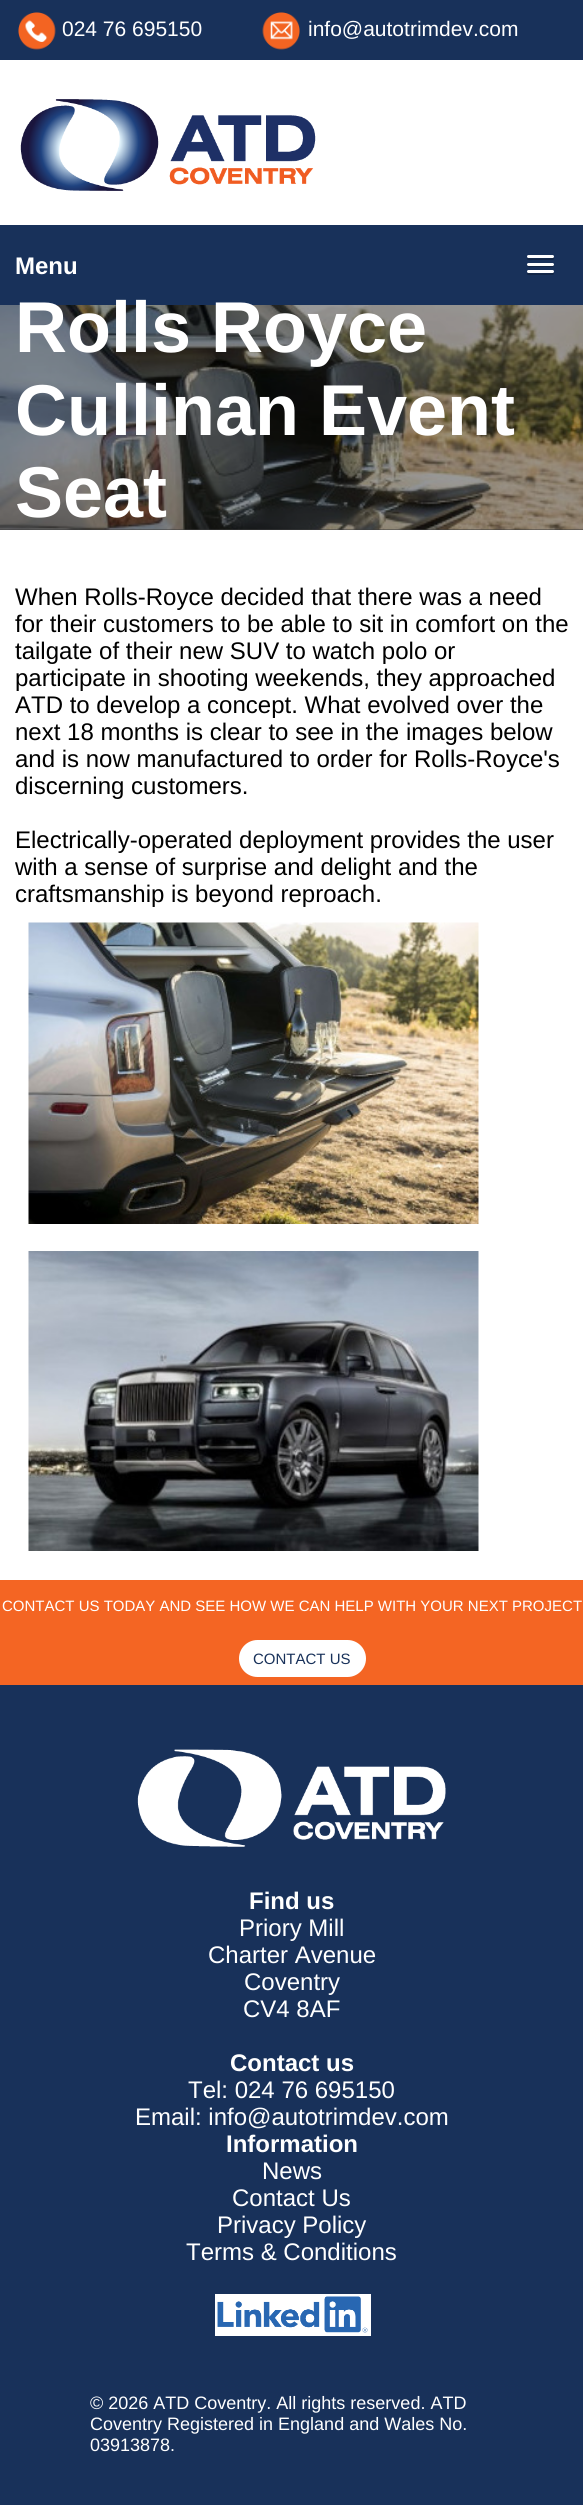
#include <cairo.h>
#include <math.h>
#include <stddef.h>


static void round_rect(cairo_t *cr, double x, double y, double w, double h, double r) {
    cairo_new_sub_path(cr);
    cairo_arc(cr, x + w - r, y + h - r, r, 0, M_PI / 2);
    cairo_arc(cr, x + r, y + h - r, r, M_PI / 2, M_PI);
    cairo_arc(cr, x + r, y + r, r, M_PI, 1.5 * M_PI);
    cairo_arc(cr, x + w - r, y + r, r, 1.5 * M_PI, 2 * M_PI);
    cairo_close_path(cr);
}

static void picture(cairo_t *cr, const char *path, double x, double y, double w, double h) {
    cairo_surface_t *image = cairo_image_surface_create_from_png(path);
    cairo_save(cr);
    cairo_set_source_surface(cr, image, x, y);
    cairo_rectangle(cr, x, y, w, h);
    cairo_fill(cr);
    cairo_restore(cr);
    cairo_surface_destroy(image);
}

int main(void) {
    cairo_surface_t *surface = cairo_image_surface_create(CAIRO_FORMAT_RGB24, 583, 2505);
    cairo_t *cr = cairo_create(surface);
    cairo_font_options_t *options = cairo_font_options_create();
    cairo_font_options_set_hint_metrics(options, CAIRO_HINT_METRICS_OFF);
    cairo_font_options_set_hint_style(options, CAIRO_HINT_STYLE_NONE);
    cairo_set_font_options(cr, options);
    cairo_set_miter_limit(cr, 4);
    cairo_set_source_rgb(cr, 1, 1, 1);
    cairo_paint(cr);
    cairo_set_source_rgb(cr, 0.094, 0.192, 0.353);
    cairo_rectangle(cr, 0, 0, 583, 60);
    cairo_fill(cr);
    picture(cr, "img1.png", 18, 12, 38, 38);
    cairo_select_font_face(cr, "Liberation Sans", CAIRO_FONT_SLANT_NORMAL, CAIRO_FONT_WEIGHT_NORMAL);
    cairo_set_font_size(cr, 21);
    cairo_set_source_rgb(cr, 1, 1, 1);
    cairo_move_to(cr, 62, 36);
    cairo_show_text(cr, "024 76 695150");
    picture(cr, "img2.png", 262, 12, 38, 38);
    cairo_move_to(cr, 308, 36);
    cairo_show_text(cr, "info@autotrimdev.com");
    picture(cr, "img3.png", 20, 99, 296, 92);
    cairo_set_source_rgb(cr, 0.094, 0.192, 0.353);
    cairo_rectangle(cr, 0, 225, 583, 80);
    cairo_fill(cr);
    cairo_select_font_face(cr, "Liberation Sans", CAIRO_FONT_SLANT_NORMAL, CAIRO_FONT_WEIGHT_BOLD);
    cairo_set_font_size(cr, 24);
    cairo_set_source_rgb(cr, 1, 1, 1);
    cairo_move_to(cr, 15, 274);
    cairo_show_text(cr, "Menu");
    cairo_set_source_rgb(cr, 0.071, 0.145, 0.267);
    cairo_new_path(cr);
    cairo_move_to(cr, 527, 258);
    cairo_curve_to(cr, 525.5, 261, 532.5, 260, 532.5, 260);
    cairo_line_to(cr, 553, 260);
    cairo_curve_to(cr, 554, 259.5, 554.5, 258, 553.5, 257);
    cairo_line_to(cr, 552, 258);
    cairo_curve_to(cr, 550, 258.5, 528, 258.5, 527, 258);
    cairo_close_path(cr);
    cairo_fill(cr);
    cairo_set_source_rgb(cr, 1, 1, 1);
    round_rect(cr, 527, 255, 27, 3, 1.5);
    cairo_fill(cr);
    cairo_set_source_rgb(cr, 0.071, 0.145, 0.267);
    cairo_new_path(cr);
    cairo_move_to(cr, 527, 265);
    cairo_curve_to(cr, 526.5, 268, 532, 267, 532.5, 267);
    cairo_line_to(cr, 552.5, 267);
    cairo_curve_to(cr, 554, 267, 554.5, 265, 553.5, 264.5);
    cairo_line_to(cr, 552.5, 265.5);
    cairo_curve_to(cr, 551, 266, 527.5, 265.5, 527, 265);
    cairo_close_path(cr);
    cairo_fill(cr);
    cairo_set_source_rgb(cr, 1, 1, 1);
    round_rect(cr, 527, 263, 27, 3, 1.5);
    cairo_fill(cr);
    cairo_set_source_rgb(cr, 0.071, 0.145, 0.267);
    cairo_new_path(cr);
    cairo_move_to(cr, 527, 273);
    cairo_curve_to(cr, 525.5, 276, 532.5, 275, 532.5, 275);
    cairo_line_to(cr, 553, 275);
    cairo_curve_to(cr, 554, 274.5, 554.5, 273, 553.5, 272);
    cairo_line_to(cr, 552, 273);
    cairo_curve_to(cr, 550, 273.5, 528, 273.5, 527, 273);
    cairo_close_path(cr);
    cairo_fill(cr);
    cairo_set_source_rgb(cr, 1, 1, 1);
    round_rect(cr, 527, 270, 27, 3, 1.5);
    cairo_fill(cr);
    cairo_set_source_rgb(cr, 0.239, 0.239, 0.239);
    cairo_rectangle(cr, 0, 529, 583, 1);
    cairo_fill(cr);
    picture(cr, "img4.png", 0, 305, 583, 225);
    cairo_set_font_size(cr, 72);
    cairo_set_source_rgb(cr, 1, 1, 1);
    cairo_move_to(cr, 15, 352);
    cairo_show_text(cr, "Rolls Royce");
    cairo_move_to(cr, 15, 435);
    cairo_show_text(cr, "Cullinan Event");
    cairo_move_to(cr, 15, 517);
    cairo_show_text(cr, "Seat");
    cairo_select_font_face(cr, "Liberation Sans", CAIRO_FONT_SLANT_NORMAL, CAIRO_FONT_WEIGHT_NORMAL);
    cairo_set_font_size(cr, 24);
    cairo_set_source_rgb(cr, 0, 0, 0);
    cairo_move_to(cr, 15, 605);
    cairo_show_text(cr, "When Rolls-Royce decided that there was a need");
    cairo_move_to(cr, 15, 632);
    cairo_show_text(cr, "for their customers to be able to sit in comfort on the");
    cairo_move_to(cr, 15, 659);
    cairo_show_text(cr, "tailgate of their new SUV to watch polo or");
    cairo_move_to(cr, 15, 686);
    cairo_show_text(cr, "participate in shooting weekends, they approached");
    cairo_move_to(cr, 15, 713);
    cairo_show_text(cr, "ATD to develop a concept. What evolved over the");
    cairo_move_to(cr, 15, 740);
    cairo_show_text(cr, "next 18 months is clear to see in the images below");
    cairo_move_to(cr, 15, 767);
    cairo_show_text(cr, "and is now manufactured to order for Rolls-Royce's");
    cairo_move_to(cr, 15, 794);
    cairo_show_text(cr, "discerning customers.");
    cairo_move_to(cr, 15, 848);
    cairo_show_text(cr, "Electrically-operated deployment provides the user");
    cairo_move_to(cr, 15, 875);
    cairo_show_text(cr, "with a sense of surprise and delight and the");
    cairo_move_to(cr, 15, 902);
    cairo_show_text(cr, "craftsmanship is beyond reproach.");
    picture(cr, "img5.png", 28, 922, 451, 302);
    picture(cr, "img6.png", 28, 1251, 451, 300);
    cairo_set_source_rgb(cr, 0.957, 0.396, 0.137);
    cairo_rectangle(cr, 0, 1580, 583, 105);
    cairo_fill(cr);
    cairo_set_font_size(cr, 15);
    cairo_set_source_rgb(cr, 1, 1, 1);
    cairo_move_to(cr, 2, 1611);
    cairo_show_text(cr, "CONTACT US TODAY AND SEE HOW WE CAN HELP WITH YOUR NEXT PROJECT");
    round_rect(cr, 239, 1640, 127, 37, 18.5);
    cairo_fill(cr);
    cairo_set_source_rgb(cr, 0.094, 0.192, 0.353);
    cairo_move_to(cr, 253, 1664);
    cairo_show_text(cr, "CONTACT US");
    cairo_rectangle(cr, 0, 1685, 583, 820);
    cairo_fill(cr);
    picture(cr, "img7.png", 137, 1749, 309, 98);
    cairo_select_font_face(cr, "Liberation Sans", CAIRO_FONT_SLANT_NORMAL, CAIRO_FONT_WEIGHT_BOLD);
    cairo_set_font_size(cr, 24);
    cairo_set_source_rgb(cr, 1, 1, 1);
    cairo_move_to(cr, 249, 1909);
    cairo_show_text(cr, "Find us");
    cairo_select_font_face(cr, "Liberation Sans", CAIRO_FONT_SLANT_NORMAL, CAIRO_FONT_WEIGHT_NORMAL);
    cairo_move_to(cr, 239, 1936);
    cairo_show_text(cr, "Priory Mill");
    cairo_move_to(cr, 208, 1963);
    cairo_show_text(cr, "Charter Avenue");
    cairo_move_to(cr, 244, 1990);
    cairo_show_text(cr, "Coventry");
    cairo_move_to(cr, 243, 2017);
    cairo_show_text(cr, "CV4 8AF");
    cairo_select_font_face(cr, "Liberation Sans", CAIRO_FONT_SLANT_NORMAL, CAIRO_FONT_WEIGHT_BOLD);
    cairo_move_to(cr, 230, 2071);
    cairo_show_text(cr, "Contact us");
    cairo_select_font_face(cr, "Liberation Sans", CAIRO_FONT_SLANT_NORMAL, CAIRO_FONT_WEIGHT_NORMAL);
    cairo_move_to(cr, 188, 2098);
    cairo_show_text(cr, "Tel: 024 76 695150");
    cairo_move_to(cr, 135, 2125);
    cairo_show_text(cr, "Email: info@autotrimdev.com");
    cairo_select_font_face(cr, "Liberation Sans", CAIRO_FONT_SLANT_NORMAL, CAIRO_FONT_WEIGHT_BOLD);
    cairo_move_to(cr, 226, 2152);
    cairo_show_text(cr, "Information");
    cairo_select_font_face(cr, "Liberation Sans", CAIRO_FONT_SLANT_NORMAL, CAIRO_FONT_WEIGHT_NORMAL);
    cairo_move_to(cr, 262, 2179);
    cairo_show_text(cr, "News");
    cairo_move_to(cr, 232, 2206);
    cairo_show_text(cr, "Contact Us");
    cairo_move_to(cr, 217, 2233);
    cairo_show_text(cr, "Privacy Policy");
    cairo_move_to(cr, 186, 2260);
    cairo_show_text(cr, "Terms & Conditions");
    cairo_rectangle(cr, 215, 2294, 156, 42);
    cairo_fill(cr);
    picture(cr, "img8.png", 217, 2296, 151, 37);
    cairo_set_font_size(cr, 18);
    cairo_move_to(cr, 90, 2409);
    cairo_show_text(cr, "© 2026 ATD Coventry. All rights reserved. ATD");
    cairo_move_to(cr, 90, 2430);
    cairo_show_text(cr, "Coventry Registered in England and Wales No.");
    cairo_move_to(cr, 90, 2451);
    cairo_show_text(cr, "03913878.");
    cairo_surface_write_to_png(surface, "page.png");
    cairo_font_options_destroy(options);
    cairo_destroy(cr);
    cairo_surface_destroy(surface);
    return 0;
}
